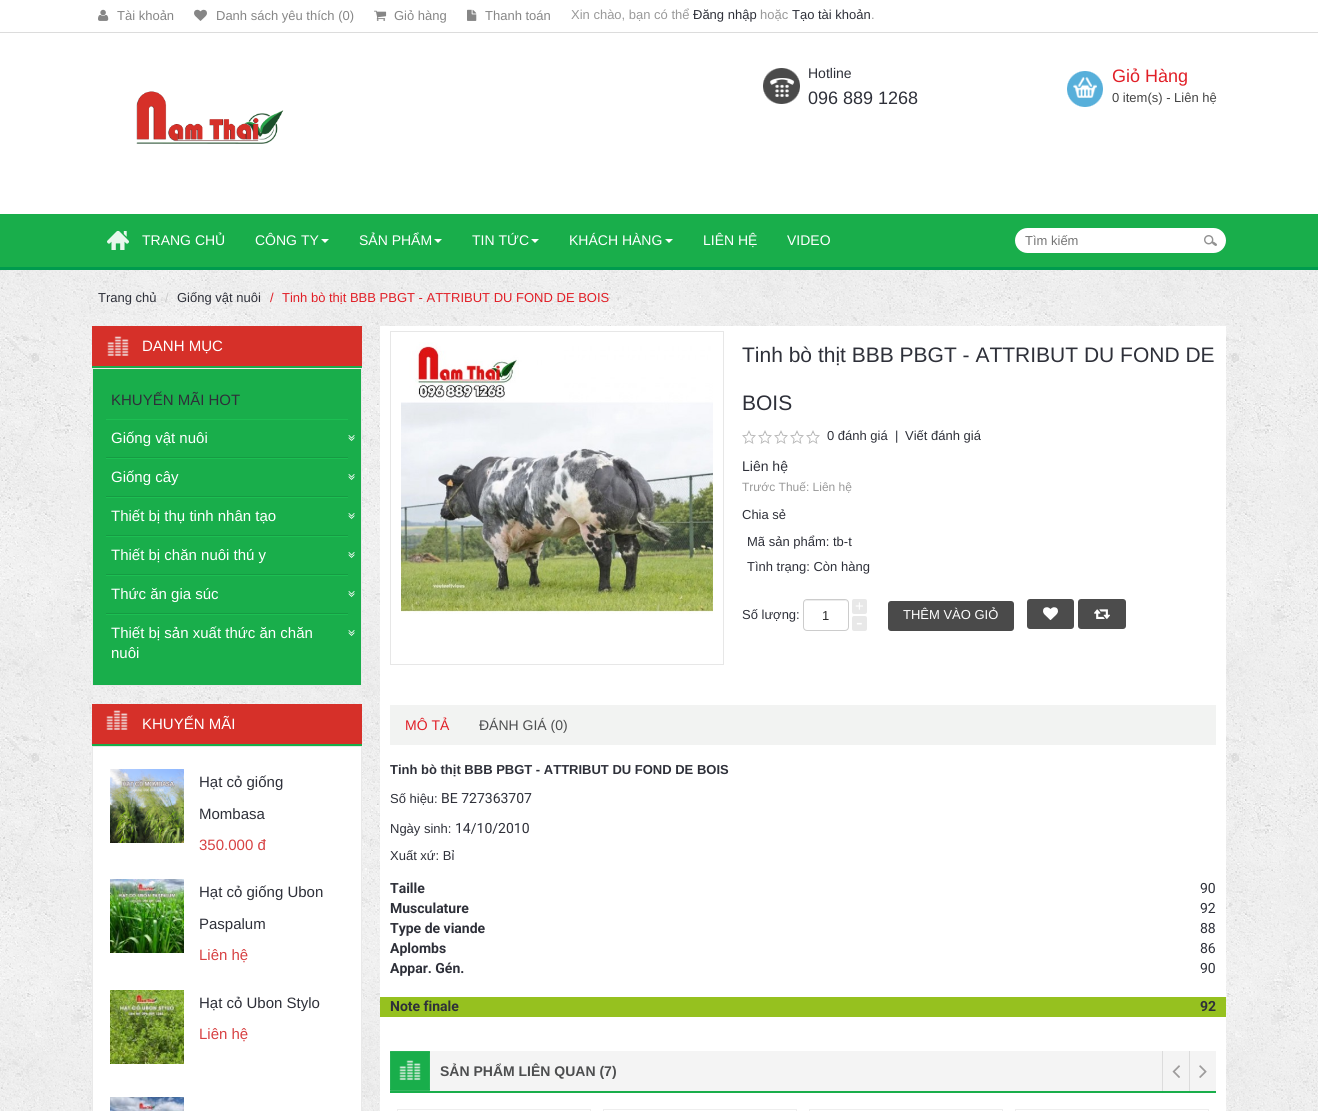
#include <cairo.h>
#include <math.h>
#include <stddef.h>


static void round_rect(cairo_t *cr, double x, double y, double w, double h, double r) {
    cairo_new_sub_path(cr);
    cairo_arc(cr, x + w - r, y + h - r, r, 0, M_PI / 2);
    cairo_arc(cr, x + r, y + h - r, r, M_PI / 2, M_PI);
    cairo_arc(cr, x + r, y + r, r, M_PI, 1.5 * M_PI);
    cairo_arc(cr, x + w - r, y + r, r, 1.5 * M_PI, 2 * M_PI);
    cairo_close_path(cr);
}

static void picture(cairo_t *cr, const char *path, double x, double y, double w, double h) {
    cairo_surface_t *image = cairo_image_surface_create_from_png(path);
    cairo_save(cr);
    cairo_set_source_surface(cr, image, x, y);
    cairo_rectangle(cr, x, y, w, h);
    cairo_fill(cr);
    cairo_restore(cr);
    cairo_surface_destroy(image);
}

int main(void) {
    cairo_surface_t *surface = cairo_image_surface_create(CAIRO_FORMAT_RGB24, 1318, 1111);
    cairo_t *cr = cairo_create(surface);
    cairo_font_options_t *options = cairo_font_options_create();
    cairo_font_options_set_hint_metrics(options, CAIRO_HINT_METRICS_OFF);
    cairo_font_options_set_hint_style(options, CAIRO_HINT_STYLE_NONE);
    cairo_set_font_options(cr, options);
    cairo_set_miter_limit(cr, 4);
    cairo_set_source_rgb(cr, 1, 1, 1);
    cairo_paint(cr);
    picture(cr, "img1.png", 0, 270, 1318, 841);
    cairo_set_source_rgb(cr, 0.863, 0.863, 0.863);
    cairo_rectangle(cr, 0, 32, 1318, 1);
    cairo_fill(cr);
    picture(cr, "img2.png", 98, 9, 11, 12);
    cairo_select_font_face(cr, "Liberation Sans", CAIRO_FONT_SLANT_NORMAL, CAIRO_FONT_WEIGHT_NORMAL);
    cairo_set_font_size(cr, 13);
    cairo_set_source_rgb(cr, 0.525, 0.525, 0.525);
    cairo_move_to(cr, 117, 20);
    cairo_show_text(cr, "Tài khoản");
    picture(cr, "img3.png", 194, 9, 13, 12);
    cairo_move_to(cr, 216, 20);
    cairo_show_text(cr, "Danh sách yêu thích (0)");
    picture(cr, "img4.png", 374, 10, 13, 11);
    cairo_move_to(cr, 394, 20);
    cairo_show_text(cr, "Giỏ hàng");
    picture(cr, "img5.png", 467, 9, 10, 12);
    cairo_move_to(cr, 485, 20);
    cairo_show_text(cr, "Thanh toán");
    cairo_set_source_rgb(cr, 0.6, 0.6, 0.6);
    cairo_move_to(cr, 571, 19);
    cairo_show_text(cr, "Xin chào, bạn có thể");
    cairo_set_source_rgb(cr, 0.18, 0.188, 0.224);
    cairo_move_to(cr, 693, 19);
    cairo_show_text(cr, "Đăng nhập");
    cairo_set_source_rgb(cr, 0.6, 0.6, 0.6);
    cairo_move_to(cr, 760, 19);
    cairo_show_text(cr, "hoặc");
    cairo_set_source_rgb(cr, 0.18, 0.188, 0.224);
    cairo_move_to(cr, 792, 19);
    cairo_show_text(cr, "Tạo tài khoản");
    cairo_set_source_rgb(cr, 0.6, 0.6, 0.6);
    cairo_move_to(cr, 871, 19);
    cairo_show_text(cr, ".");
    picture(cr, "img6.png", 763, 68, 37, 36);
    cairo_set_font_size(cr, 14);
    cairo_set_source_rgb(cr, 0.18, 0.188, 0.224);
    cairo_move_to(cr, 808, 78);
    cairo_show_text(cr, "Hotline");
    cairo_set_font_size(cr, 18);
    cairo_move_to(cr, 808, 104);
    cairo_show_text(cr, "096 889 1268");
    picture(cr, "img7.png", 1067, 71, 36, 36);
    cairo_set_source_rgb(cr, 0.882, 0.122, 0.153);
    cairo_move_to(cr, 1112, 82);
    cairo_show_text(cr, "Giỏ Hàng");
    cairo_set_font_size(cr, 13);
    cairo_set_source_rgb(cr, 0.263, 0.263, 0.263);
    cairo_move_to(cr, 1112, 102);
    cairo_show_text(cr, "0 item(s) - Liên hệ");
    picture(cr, "img8.png", 136, 91, 148, 53);
    cairo_set_source_rgb(cr, 0.098, 0.682, 0.294);
    cairo_rectangle(cr, 0, 214, 1318, 53);
    cairo_fill(cr);
    cairo_set_source_rgb(cr, 0, 0.608, 0.306);
    cairo_rectangle(cr, 0, 267, 1318, 3);
    cairo_fill(cr);
    picture(cr, "img9.png", 107, 230, 22, 20);
    cairo_set_font_size(cr, 14);
    cairo_set_source_rgb(cr, 1, 1, 1);
    cairo_move_to(cr, 142, 245);
    cairo_show_text(cr, "TRANG CHỦ");
    cairo_move_to(cr, 255, 245);
    cairo_show_text(cr, "CÔNG TY");
    cairo_new_path(cr);
    cairo_move_to(cr, 321, 239);
    cairo_line_to(cr, 329, 239);
    cairo_line_to(cr, 325, 243);
    cairo_close_path(cr);
    cairo_fill(cr);
    cairo_move_to(cr, 359, 245);
    cairo_show_text(cr, "SẢN PHẨM");
    cairo_new_path(cr);
    cairo_move_to(cr, 434, 239);
    cairo_line_to(cr, 442, 239);
    cairo_line_to(cr, 438, 243);
    cairo_close_path(cr);
    cairo_fill(cr);
    cairo_move_to(cr, 472, 245);
    cairo_show_text(cr, "TIN TỨC");
    cairo_new_path(cr);
    cairo_move_to(cr, 531, 239);
    cairo_line_to(cr, 539, 239);
    cairo_line_to(cr, 535, 243);
    cairo_close_path(cr);
    cairo_fill(cr);
    cairo_move_to(cr, 569, 245);
    cairo_show_text(cr, "KHÁCH HÀNG");
    cairo_new_path(cr);
    cairo_move_to(cr, 665, 239);
    cairo_line_to(cr, 673, 239);
    cairo_line_to(cr, 669, 243);
    cairo_close_path(cr);
    cairo_fill(cr);
    cairo_move_to(cr, 703, 245);
    cairo_show_text(cr, "LIÊN HỆ");
    cairo_move_to(cr, 787, 245);
    cairo_show_text(cr, "VIDEO");
    round_rect(cr, 1015, 228, 211, 25, 12.5);
    cairo_fill(cr);
    cairo_set_font_size(cr, 13);
    cairo_set_source_rgb(cr, 0.459, 0.459, 0.459);
    cairo_move_to(cr, 1025, 245);
    cairo_show_text(cr, "Tìm kiếm");
    picture(cr, "img10.png", 1204, 235, 13, 11);
    cairo_set_source_rgb(cr, 0.18, 0.188, 0.224);
    cairo_move_to(cr, 98, 302);
    cairo_show_text(cr, "Trang chủ");
    cairo_set_source_rgb(cr, 0.8, 0.8, 0.8);
    cairo_move_to(cr, 165, 302);
    cairo_show_text(cr, "/");
    cairo_set_source_rgb(cr, 0.18, 0.188, 0.224);
    cairo_move_to(cr, 177, 302);
    cairo_show_text(cr, "Giống vật nuôi");
    cairo_set_source_rgb(cr, 0.882, 0.122, 0.153);
    cairo_move_to(cr, 270, 302);
    cairo_show_text(cr, "/");
    cairo_move_to(cr, 282, 302);
    cairo_show_text(cr, "Tinh bò thịt BBB PBGT - ATTRIBUT DU FOND DE BOIS");
    cairo_set_source_rgb(cr, 0.839, 0.188, 0.161);
    cairo_rectangle(cr, 92, 326, 270, 40);
    cairo_fill(cr);
    picture(cr, "img11.png", 107, 336, 22, 20);
    cairo_set_source_rgb(cr, 0.098, 0.682, 0.294);
    cairo_rectangle(cr, 92, 366, 270, 2);
    cairo_fill(cr);
    cairo_set_font_size(cr, 15);
    cairo_set_source_rgb(cr, 1, 1, 1);
    cairo_move_to(cr, 142, 351);
    cairo_show_text(cr, "DANH MỤC");
    cairo_set_source_rgb(cr, 0.098, 0.682, 0.294);
    cairo_rectangle(cr, 92.5, 368.5, 269, 317);
    cairo_fill_preserve(cr);
    cairo_set_source_rgb(cr, 0.914, 0.914, 0.914);
    cairo_set_line_width(cr, 1);
    cairo_stroke(cr);
    cairo_set_source_rgb(cr, 0.18, 0.188, 0.224);
    cairo_move_to(cr, 111, 405);
    cairo_show_text(cr, "KHUYẾN MÃI HOT");
    cairo_set_source_rgb(cr, 0.11, 0.749, 0.322);
    cairo_rectangle(cr, 106, 419, 242, 1);
    cairo_fill(cr);
    cairo_set_source_rgb(cr, 0.086, 0.608, 0.263);
    cairo_rectangle(cr, 106, 457, 242, 1);
    cairo_fill(cr);
    cairo_set_source_rgb(cr, 1, 1, 1);
    cairo_move_to(cr, 111, 443);
    cairo_show_text(cr, "Giống vật nuôi");
    picture(cr, "img12.png", 348, 435, 7, 6);
    cairo_set_source_rgb(cr, 0.11, 0.749, 0.322);
    cairo_rectangle(cr, 106, 458, 242, 1);
    cairo_fill(cr);
    cairo_set_source_rgb(cr, 0.086, 0.608, 0.263);
    cairo_rectangle(cr, 106, 496, 242, 1);
    cairo_fill(cr);
    cairo_set_source_rgb(cr, 1, 1, 1);
    cairo_move_to(cr, 111, 482);
    cairo_show_text(cr, "Giống cây");
    picture(cr, "img12.png", 348, 474, 7, 6);
    cairo_set_source_rgb(cr, 0.11, 0.749, 0.322);
    cairo_rectangle(cr, 106, 497, 242, 1);
    cairo_fill(cr);
    cairo_set_source_rgb(cr, 0.086, 0.608, 0.263);
    cairo_rectangle(cr, 106, 535, 242, 1);
    cairo_fill(cr);
    cairo_set_source_rgb(cr, 1, 1, 1);
    cairo_move_to(cr, 111, 521);
    cairo_show_text(cr, "Thiết bị thụ tinh nhân tạo");
    picture(cr, "img12.png", 348, 513, 7, 6);
    cairo_set_source_rgb(cr, 0.11, 0.749, 0.322);
    cairo_rectangle(cr, 106, 536, 242, 1);
    cairo_fill(cr);
    cairo_set_source_rgb(cr, 0.086, 0.608, 0.263);
    cairo_rectangle(cr, 106, 574, 242, 1);
    cairo_fill(cr);
    cairo_set_source_rgb(cr, 1, 1, 1);
    cairo_move_to(cr, 111, 560);
    cairo_show_text(cr, "Thiết bị chăn nuôi thú y");
    picture(cr, "img12.png", 348, 552, 7, 6);
    cairo_set_source_rgb(cr, 0.11, 0.749, 0.322);
    cairo_rectangle(cr, 106, 575, 242, 1);
    cairo_fill(cr);
    cairo_set_source_rgb(cr, 0.086, 0.608, 0.263);
    cairo_rectangle(cr, 106, 613, 242, 1);
    cairo_fill(cr);
    cairo_set_source_rgb(cr, 1, 1, 1);
    cairo_move_to(cr, 111, 599);
    cairo_show_text(cr, "Thức ăn gia súc");
    picture(cr, "img12.png", 348, 591, 7, 6);
    cairo_set_source_rgb(cr, 0.11, 0.749, 0.322);
    cairo_rectangle(cr, 106, 614, 242, 1);
    cairo_fill(cr);
    cairo_set_source_rgb(cr, 1, 1, 1);
    cairo_move_to(cr, 111, 638);
    cairo_show_text(cr, "Thiết bị sản xuất thức ăn chăn");
    cairo_move_to(cr, 111, 658);
    cairo_show_text(cr, "nuôi");
    picture(cr, "img12.png", 348, 630, 7, 6);
    cairo_set_source_rgb(cr, 0.839, 0.188, 0.161);
    cairo_rectangle(cr, 92, 704, 270, 40);
    cairo_fill(cr);
    picture(cr, "img11.png", 106, 710, 22, 20);
    cairo_set_source_rgb(cr, 0.098, 0.682, 0.294);
    cairo_rectangle(cr, 92, 744, 270, 2);
    cairo_fill(cr);
    cairo_set_source_rgb(cr, 1, 1, 1);
    cairo_move_to(cr, 142, 729);
    cairo_show_text(cr, "KHUYẾN MÃI");
    cairo_rectangle(cr, 92.5, 746.5, 269, 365);
    cairo_fill_preserve(cr);
    cairo_set_source_rgb(cr, 0.914, 0.914, 0.914);
    cairo_stroke(cr);
    picture(cr, "img13.png", 110, 769, 74, 74);
    cairo_set_source_rgb(cr, 0.18, 0.188, 0.224);
    cairo_move_to(cr, 199, 787);
    cairo_show_text(cr, "Hạt cỏ giống");
    cairo_move_to(cr, 199, 819);
    cairo_show_text(cr, "Mombasa");
    cairo_set_source_rgb(cr, 0.843, 0.255, 0.259);
    cairo_move_to(cr, 199, 850);
    cairo_show_text(cr, "350.000 đ");
    picture(cr, "img14.png", 110, 879, 74, 74);
    cairo_set_source_rgb(cr, 0.18, 0.188, 0.224);
    cairo_move_to(cr, 199, 897);
    cairo_show_text(cr, "Hạt cỏ giống Ubon");
    cairo_move_to(cr, 199, 929);
    cairo_show_text(cr, "Paspalum");
    cairo_set_source_rgb(cr, 0.843, 0.255, 0.259);
    cairo_move_to(cr, 199, 960);
    cairo_show_text(cr, "Liên hệ");
    picture(cr, "img15.png", 110, 990, 74, 74);
    cairo_set_source_rgb(cr, 0.18, 0.188, 0.224);
    cairo_move_to(cr, 199, 1008);
    cairo_show_text(cr, "Hạt cỏ Ubon Stylo");
    cairo_set_source_rgb(cr, 0.843, 0.255, 0.259);
    cairo_move_to(cr, 199, 1039);
    cairo_show_text(cr, "Liên hệ");
    picture(cr, "img16.png", 110, 1097, 74, 14);
    cairo_set_source_rgb(cr, 1, 1, 1);
    cairo_rectangle(cr, 380, 326, 846, 785);
    cairo_fill(cr);
    cairo_rectangle(cr, 390.5, 331.5, 333, 333);
    cairo_set_source_rgb(cr, 0.906, 0.906, 0.906);
    cairo_stroke(cr);
    picture(cr, "img17.png", 401, 342, 312, 272);
    cairo_set_font_size(cr, 21);
    cairo_set_source_rgb(cr, 0.18, 0.188, 0.224);
    cairo_move_to(cr, 742, 362);
    cairo_show_text(cr, "Tinh bò thịt BBB PBGT - ATTRIBUT DU FOND DE");
    cairo_move_to(cr, 742, 410);
    cairo_show_text(cr, "BOIS");
    picture(cr, "img18.png", 742, 430, 78, 14);
    cairo_set_font_size(cr, 13);
    cairo_move_to(cr, 827, 440);
    cairo_show_text(cr, "0 đánh giá");
    cairo_move_to(cr, 895, 440);
    cairo_show_text(cr, "|");
    cairo_move_to(cr, 905, 440);
    cairo_show_text(cr, "Viết đánh giá");
    cairo_set_font_size(cr, 14);
    cairo_move_to(cr, 742, 471);
    cairo_show_text(cr, "Liên hệ");
    cairo_set_font_size(cr, 12);
    cairo_set_source_rgb(cr, 0.6, 0.6, 0.6);
    cairo_move_to(cr, 742, 491);
    cairo_show_text(cr, "Trước Thuế: Liên hệ");
    cairo_set_font_size(cr, 13);
    cairo_set_source_rgb(cr, 0.18, 0.188, 0.224);
    cairo_move_to(cr, 742, 519);
    cairo_show_text(cr, "Chia sẻ");
    cairo_move_to(cr, 747, 546);
    cairo_show_text(cr, "Mã sản phẩm: tb-t");
    cairo_move_to(cr, 747, 571);
    cairo_show_text(cr, "Tình trạng: Còn hàng");
    cairo_set_source_rgb(cr, 0.91, 0.91, 0.91);
    round_rect(cr, 852, 599, 15, 15, 2);
    cairo_fill(cr);
    cairo_set_font_size(cr, 15);
    cairo_set_source_rgb(cr, 1, 1, 1);
    cairo_move_to(cr, 855, 611);
    cairo_show_text(cr, "+");
    cairo_set_font_size(cr, 13);
    cairo_set_source_rgb(cr, 0.18, 0.188, 0.224);
    cairo_move_to(cr, 742, 619);
    cairo_show_text(cr, "Số lượng:");
    cairo_set_source_rgb(cr, 0.925, 0.925, 0.925);
    cairo_new_path(cr);
    cairo_move_to(cr, 807, 601);
    cairo_line_to(cr, 845, 601);
    cairo_curve_to(cr, 847, 601, 848, 602, 848, 604);
    cairo_curve_to(cr, 848, 599, 843, 600, 839, 600);
    cairo_line_to(cr, 813, 600);
    cairo_curve_to(cr, 809, 600, 804, 599, 804, 604);
    cairo_curve_to(cr, 804, 602, 805, 601, 807, 601);
    cairo_close_path(cr);
    cairo_fill(cr);
    round_rect(cr, 803.5, 599.5, 45, 31, 3.5);
    cairo_set_source_rgb(cr, 0.8, 0.8, 0.8);
    cairo_stroke(cr);
    cairo_set_source_rgb(cr, 0.161, 0.161, 0.161);
    cairo_move_to(cr, 822, 620);
    cairo_show_text(cr, "1");
    cairo_set_source_rgb(cr, 0.91, 0.91, 0.91);
    round_rect(cr, 852, 616, 15, 15, 2);
    cairo_fill(cr);
    cairo_set_font_size(cr, 20);
    cairo_set_source_rgb(cr, 1, 1, 1);
    cairo_move_to(cr, 856, 629);
    cairo_show_text(cr, "-");
    cairo_set_source_rgb(cr, 0.29, 0.29, 0.29);
    round_rect(cr, 888, 601, 126, 30, 3);
    cairo_fill(cr);
    cairo_set_font_size(cr, 13);
    cairo_set_source_rgb(cr, 1, 1, 1);
    cairo_move_to(cr, 903, 619);
    cairo_show_text(cr, "THÊM VÀO GIỎ");
    cairo_set_source_rgb(cr, 0.298, 0.298, 0.298);
    round_rect(cr, 1027, 599, 47, 30, 3);
    cairo_fill(cr);
    picture(cr, "img19.png", 1043, 607, 15, 13);
    round_rect(cr, 1078, 599, 48, 30, 3);
    cairo_fill(cr);
    picture(cr, "img20.png", 1094, 609, 16, 10);
    cairo_set_source_rgb(cr, 0.949, 0.953, 0.949);
    cairo_rectangle(cr, 390, 705, 826, 40);
    cairo_fill(cr);
    cairo_set_font_size(cr, 14);
    cairo_set_source_rgb(cr, 0.882, 0.122, 0.153);
    cairo_move_to(cr, 405, 730);
    cairo_show_text(cr, "MÔ TẢ");
    cairo_set_source_rgb(cr, 0.302, 0.306, 0.31);
    cairo_move_to(cr, 479, 730);
    cairo_show_text(cr, "ĐÁNH GIÁ (0)");
    cairo_select_font_face(cr, "Liberation Sans", CAIRO_FONT_SLANT_NORMAL, CAIRO_FONT_WEIGHT_BOLD);
    cairo_set_font_size(cr, 13);
    cairo_set_source_rgb(cr, 0.18, 0.188, 0.224);
    cairo_move_to(cr, 390, 774);
    cairo_show_text(cr, "Tinh bò thịt BBB PBGT - ATTRIBUT DU FOND DE BOIS");
    cairo_select_font_face(cr, "Liberation Sans", CAIRO_FONT_SLANT_NORMAL, CAIRO_FONT_WEIGHT_NORMAL);
    cairo_move_to(cr, 390, 803);
    cairo_show_text(cr, "Số hiệu:");
    cairo_select_font_face(cr, "Roboto", CAIRO_FONT_SLANT_NORMAL, CAIRO_FONT_WEIGHT_NORMAL);
    cairo_set_font_size(cr, 14);
    cairo_move_to(cr, 441, 803);
    cairo_show_text(cr, "BE 727363707");
    cairo_select_font_face(cr, "Liberation Sans", CAIRO_FONT_SLANT_NORMAL, CAIRO_FONT_WEIGHT_NORMAL);
    cairo_set_font_size(cr, 13);
    cairo_move_to(cr, 390, 833);
    cairo_show_text(cr, "Ngày sinh:");
    cairo_select_font_face(cr, "Roboto", CAIRO_FONT_SLANT_NORMAL, CAIRO_FONT_WEIGHT_NORMAL);
    cairo_set_font_size(cr, 14);
    cairo_move_to(cr, 455, 833);
    cairo_show_text(cr, "14/10/2010");
    cairo_select_font_face(cr, "Liberation Sans", CAIRO_FONT_SLANT_NORMAL, CAIRO_FONT_WEIGHT_NORMAL);
    cairo_set_font_size(cr, 13);
    cairo_move_to(cr, 390, 860);
    cairo_show_text(cr, "Xuất xứ: Bỉ");
    cairo_select_font_face(cr, "Roboto", CAIRO_FONT_SLANT_NORMAL, CAIRO_FONT_WEIGHT_BOLD);
    cairo_set_font_size(cr, 14);
    cairo_move_to(cr, 390, 893);
    cairo_show_text(cr, "Taille");
    cairo_select_font_face(cr, "Roboto", CAIRO_FONT_SLANT_NORMAL, CAIRO_FONT_WEIGHT_NORMAL);
    cairo_move_to(cr, 1200, 893);
    cairo_show_text(cr, "90");
    cairo_select_font_face(cr, "Roboto", CAIRO_FONT_SLANT_NORMAL, CAIRO_FONT_WEIGHT_BOLD);
    cairo_move_to(cr, 390, 913);
    cairo_show_text(cr, "Musculature");
    cairo_select_font_face(cr, "Roboto", CAIRO_FONT_SLANT_NORMAL, CAIRO_FONT_WEIGHT_NORMAL);
    cairo_move_to(cr, 1200, 913);
    cairo_show_text(cr, "92");
    cairo_select_font_face(cr, "Roboto", CAIRO_FONT_SLANT_NORMAL, CAIRO_FONT_WEIGHT_BOLD);
    cairo_move_to(cr, 390, 933);
    cairo_show_text(cr, "Type de viande");
    cairo_select_font_face(cr, "Roboto", CAIRO_FONT_SLANT_NORMAL, CAIRO_FONT_WEIGHT_NORMAL);
    cairo_move_to(cr, 1200, 933);
    cairo_show_text(cr, "88");
    cairo_select_font_face(cr, "Roboto", CAIRO_FONT_SLANT_NORMAL, CAIRO_FONT_WEIGHT_BOLD);
    cairo_move_to(cr, 390, 953);
    cairo_show_text(cr, "Aplombs");
    cairo_select_font_face(cr, "Roboto", CAIRO_FONT_SLANT_NORMAL, CAIRO_FONT_WEIGHT_NORMAL);
    cairo_move_to(cr, 1200, 953);
    cairo_show_text(cr, "86");
    cairo_select_font_face(cr, "Roboto", CAIRO_FONT_SLANT_NORMAL, CAIRO_FONT_WEIGHT_BOLD);
    cairo_move_to(cr, 390, 973);
    cairo_show_text(cr, "Appar. Gén.");
    cairo_select_font_face(cr, "Roboto", CAIRO_FONT_SLANT_NORMAL, CAIRO_FONT_WEIGHT_NORMAL);
    cairo_move_to(cr, 1200, 973);
    cairo_show_text(cr, "90");
    cairo_set_source_rgb(cr, 0.588, 0.757, 0.122);
    cairo_rectangle(cr, 380, 997, 846, 20);
    cairo_fill(cr);
    cairo_select_font_face(cr, "Roboto", CAIRO_FONT_SLANT_NORMAL, CAIRO_FONT_WEIGHT_BOLD);
    cairo_set_source_rgb(cr, 0.18, 0.188, 0.224);
    cairo_move_to(cr, 390, 1011);
    cairo_show_text(cr, "Note finale");
    cairo_move_to(cr, 1200, 1011);
    cairo_show_text(cr, "92");
    cairo_set_source_rgb(cr, 0.957, 0.957, 0.957);
    cairo_rectangle(cr, 390, 1051, 826, 40);
    cairo_fill(cr);
    cairo_set_source_rgb(cr, 0.863, 0.863, 0.863);
    cairo_rectangle(cr, 1162, 1051, 1, 40);
    cairo_fill(cr);
    picture(cr, "img21.png", 1172, 1065, 8, 13);
    cairo_rectangle(cr, 1189, 1051, 1, 40);
    cairo_fill(cr);
    picture(cr, "img22.png", 1199, 1065, 8, 13);
    cairo_rectangle(cr, 397.5, 1109.5, 193, 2);
    cairo_set_source_rgb(cr, 0.933, 0.933, 0.933);
    cairo_stroke(cr);
    cairo_rectangle(cr, 603.5, 1109.5, 193, 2);
    cairo_stroke(cr);
    cairo_rectangle(cr, 809.5, 1109.5, 193, 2);
    cairo_stroke(cr);
    cairo_rectangle(cr, 1015.5, 1109.5, 193, 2);
    cairo_stroke(cr);
    picture(cr, "img23.png", 390, 1051, 40, 40);
    cairo_set_source_rgb(cr, 0.098, 0.682, 0.294);
    cairo_rectangle(cr, 390, 1091, 826, 2);
    cairo_fill(cr);
    cairo_select_font_face(cr, "Liberation Sans", CAIRO_FONT_SLANT_NORMAL, CAIRO_FONT_WEIGHT_BOLD);
    cairo_set_source_rgb(cr, 0.302, 0.306, 0.31);
    cairo_move_to(cr, 440, 1076);
    cairo_show_text(cr, "SẢN PHẨM LIÊN QUAN (7)");
    cairo_surface_write_to_png(surface, "page.png");
    cairo_font_options_destroy(options);
    cairo_destroy(cr);
    cairo_surface_destroy(surface);
    return 0;
}
